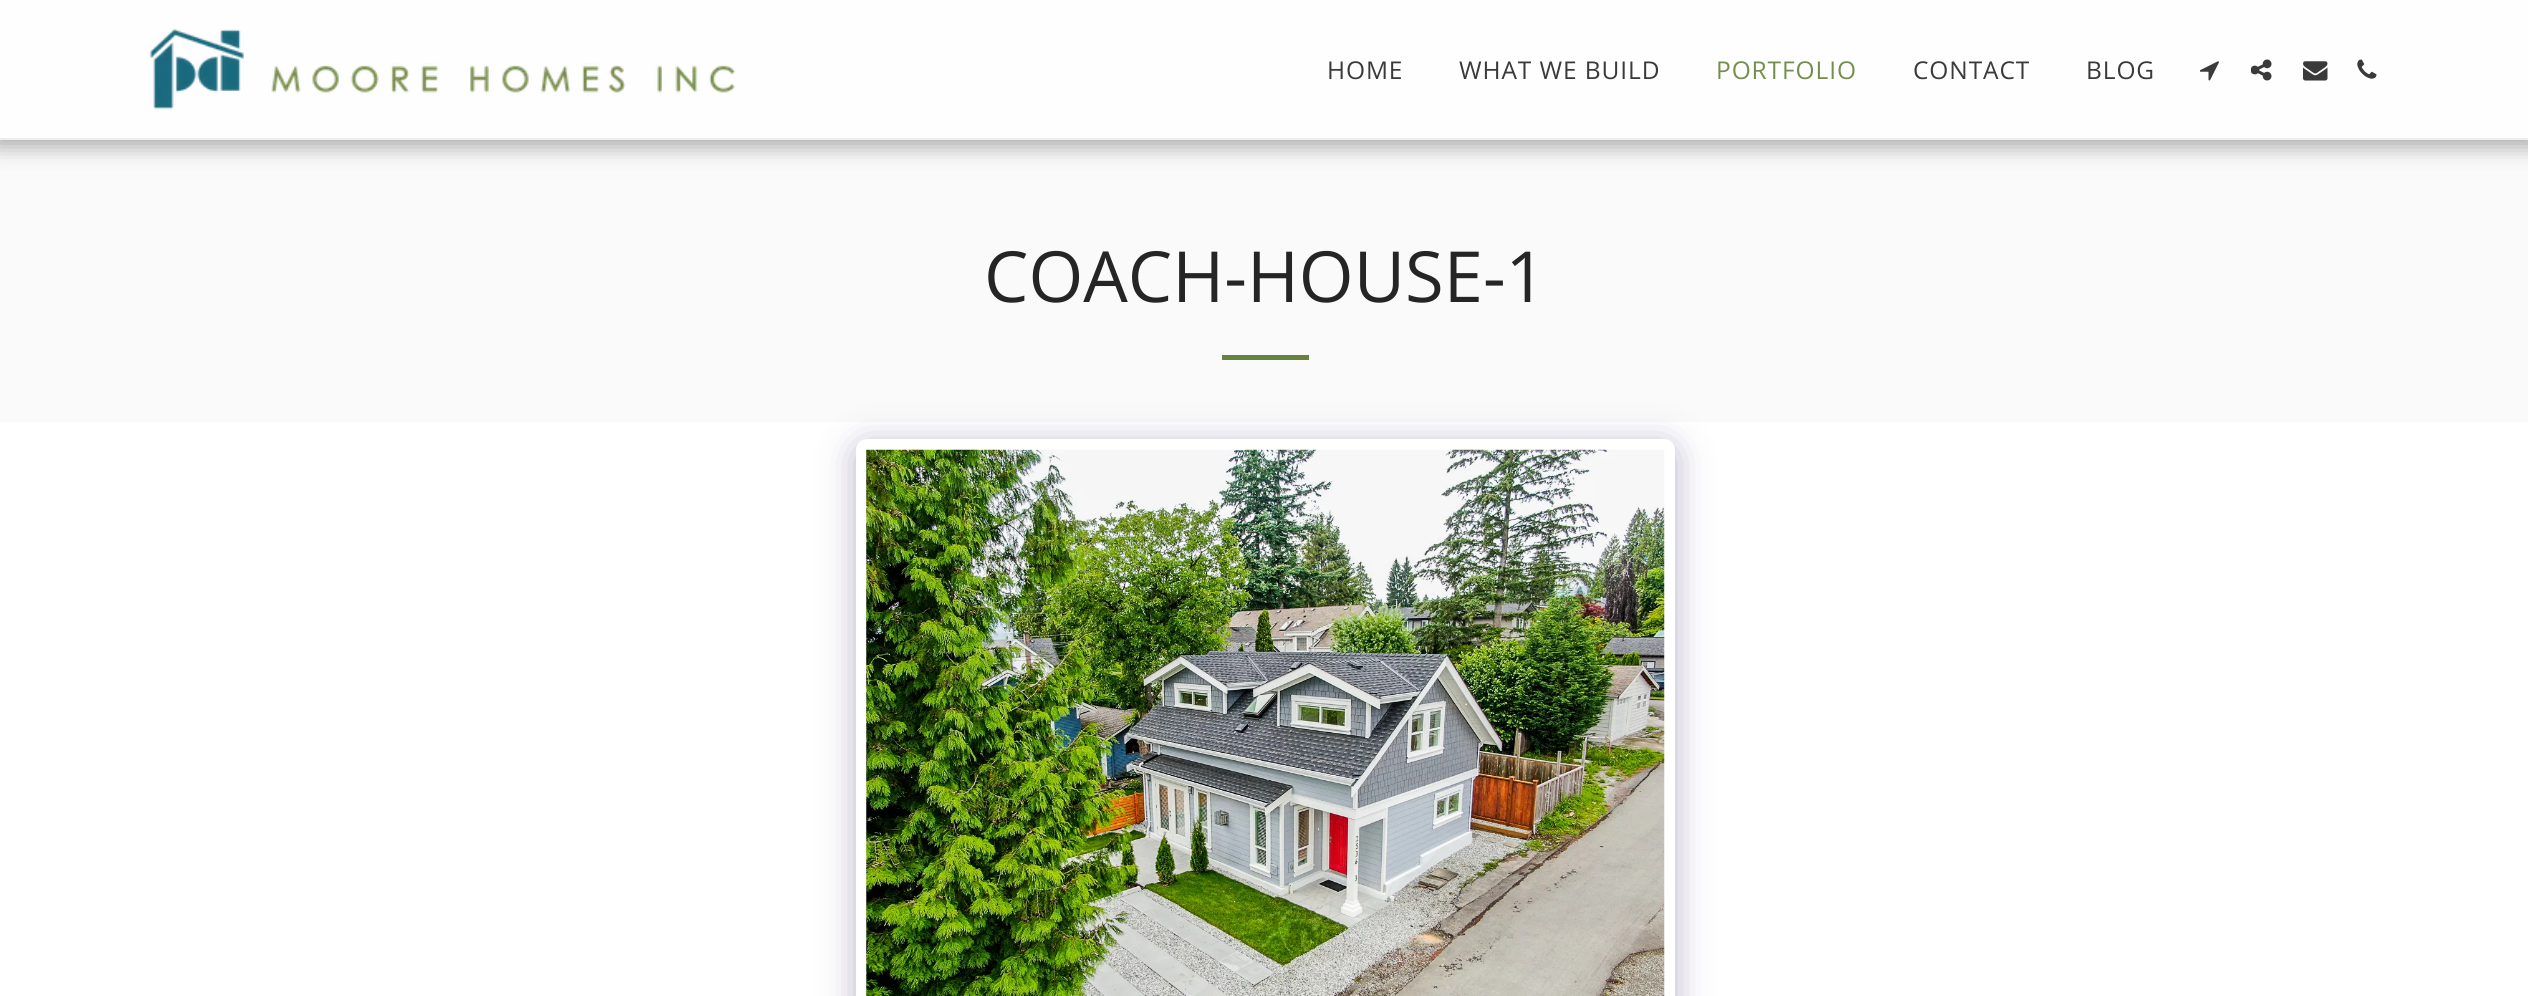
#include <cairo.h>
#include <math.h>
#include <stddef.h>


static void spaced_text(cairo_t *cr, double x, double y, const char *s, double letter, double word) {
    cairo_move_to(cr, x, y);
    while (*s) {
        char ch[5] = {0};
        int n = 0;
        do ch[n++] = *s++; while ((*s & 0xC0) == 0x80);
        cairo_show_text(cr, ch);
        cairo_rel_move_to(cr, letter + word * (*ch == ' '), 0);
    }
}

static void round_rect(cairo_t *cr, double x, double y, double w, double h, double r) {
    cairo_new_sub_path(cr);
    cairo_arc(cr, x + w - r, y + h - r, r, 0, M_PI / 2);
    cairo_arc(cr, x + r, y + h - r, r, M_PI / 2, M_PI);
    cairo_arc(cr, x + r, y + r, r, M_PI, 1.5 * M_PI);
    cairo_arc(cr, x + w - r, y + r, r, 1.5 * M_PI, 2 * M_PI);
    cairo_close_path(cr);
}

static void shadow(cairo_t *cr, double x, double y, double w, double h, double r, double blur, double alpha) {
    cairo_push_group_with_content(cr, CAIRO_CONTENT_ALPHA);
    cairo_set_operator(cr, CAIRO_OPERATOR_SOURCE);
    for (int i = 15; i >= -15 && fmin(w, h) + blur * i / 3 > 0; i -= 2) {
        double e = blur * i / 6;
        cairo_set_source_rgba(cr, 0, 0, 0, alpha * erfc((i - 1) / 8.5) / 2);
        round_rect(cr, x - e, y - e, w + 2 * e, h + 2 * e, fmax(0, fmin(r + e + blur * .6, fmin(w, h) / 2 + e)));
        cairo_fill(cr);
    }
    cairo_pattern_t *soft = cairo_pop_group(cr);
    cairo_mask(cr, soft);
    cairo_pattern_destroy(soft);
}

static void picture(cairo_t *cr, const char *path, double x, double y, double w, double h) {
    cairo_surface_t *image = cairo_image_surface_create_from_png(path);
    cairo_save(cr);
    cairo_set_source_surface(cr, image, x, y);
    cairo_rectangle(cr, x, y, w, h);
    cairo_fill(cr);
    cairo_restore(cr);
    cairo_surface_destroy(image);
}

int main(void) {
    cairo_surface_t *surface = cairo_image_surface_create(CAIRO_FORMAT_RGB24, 2528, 996);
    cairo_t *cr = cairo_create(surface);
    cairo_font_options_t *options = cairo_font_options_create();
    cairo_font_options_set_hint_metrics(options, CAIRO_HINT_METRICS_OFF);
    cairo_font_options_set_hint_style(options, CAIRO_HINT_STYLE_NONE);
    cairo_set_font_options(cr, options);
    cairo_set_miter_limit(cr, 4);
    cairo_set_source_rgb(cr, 1, 1, 1);
    cairo_paint(cr);
    cairo_set_source_rgb(cr, 0.98, 0.98, 0.98);
    cairo_rectangle(cr, 0, 140, 2528, 282);
    cairo_fill(cr);
    cairo_set_source_rgb(cr, 0.098, 0.098, 0.098);
    shadow(cr, -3, 0, 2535, 147, 0, 10.5, 0.35);
    cairo_set_source_rgb(cr, 0.996, 0.996, 0.996);
    cairo_rectangle(cr, 0, 0, 2528, 138);
    cairo_fill(cr);
    cairo_set_source_rgb(cr, 0.929, 0.929, 0.929);
    cairo_rectangle(cr, 0, 138, 2528, 2);
    cairo_fill(cr);
    picture(cr, "img1.png", 150, 29, 586, 81);
    cairo_select_font_face(cr, "Open Sans", CAIRO_FONT_SLANT_NORMAL, CAIRO_FONT_WEIGHT_NORMAL);
    cairo_set_font_size(cr, 24.5);
    cairo_set_source_rgb(cr, 0.227, 0.227, 0.227);
    spaced_text(cr, 1327, 79, "HOME", 0.9, 0);
    spaced_text(cr, 1459, 79, "WHAT WE BUILD", 0.9, 0);
    cairo_set_source_rgb(cr, 0.463, 0.557, 0.302);
    spaced_text(cr, 1716, 79, "PORTFOLIO", 0.9, 0);
    cairo_set_source_rgb(cr, 0.227, 0.227, 0.227);
    spaced_text(cr, 1913, 79, "CONTACT", 0.9, 0);
    spaced_text(cr, 2086, 79, "BLOG", 0.9, 0);
    picture(cr, "img2.png", 2200, 61, 19, 20);
    picture(cr, "img3.png", 2251, 59, 21, 22);
    picture(cr, "img4.png", 2303, 61, 25, 20);
    picture(cr, "img5.png", 2357, 59, 20, 20);
    cairo_set_font_size(cr, 70.5);
    cairo_set_source_rgb(cr, 0.145, 0.145, 0.145);
    cairo_move_to(cr, 984, 302);
    cairo_show_text(cr, "COACH-HOUSE-1");
    cairo_set_source_rgb(cr, 0.404, 0.51, 0.227);
    cairo_rectangle(cr, 1222, 355, 87, 5);
    cairo_fill(cr);
    cairo_set_source_rgb(cr, 0.302, 0.247, 0.478);
    shadow(cr, 856, 445, 819, 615, 11, 17.5, 0.4);
    cairo_set_source_rgb(cr, 1, 1, 1);
    round_rect(cr, 856, 439, 819, 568, 11);
    cairo_fill(cr);
    picture(cr, "img6.png", 866, 449, 799, 547);
    cairo_surface_write_to_png(surface, "page.png");
    cairo_font_options_destroy(options);
    cairo_destroy(cr);
    cairo_surface_destroy(surface);
    return 0;
}
